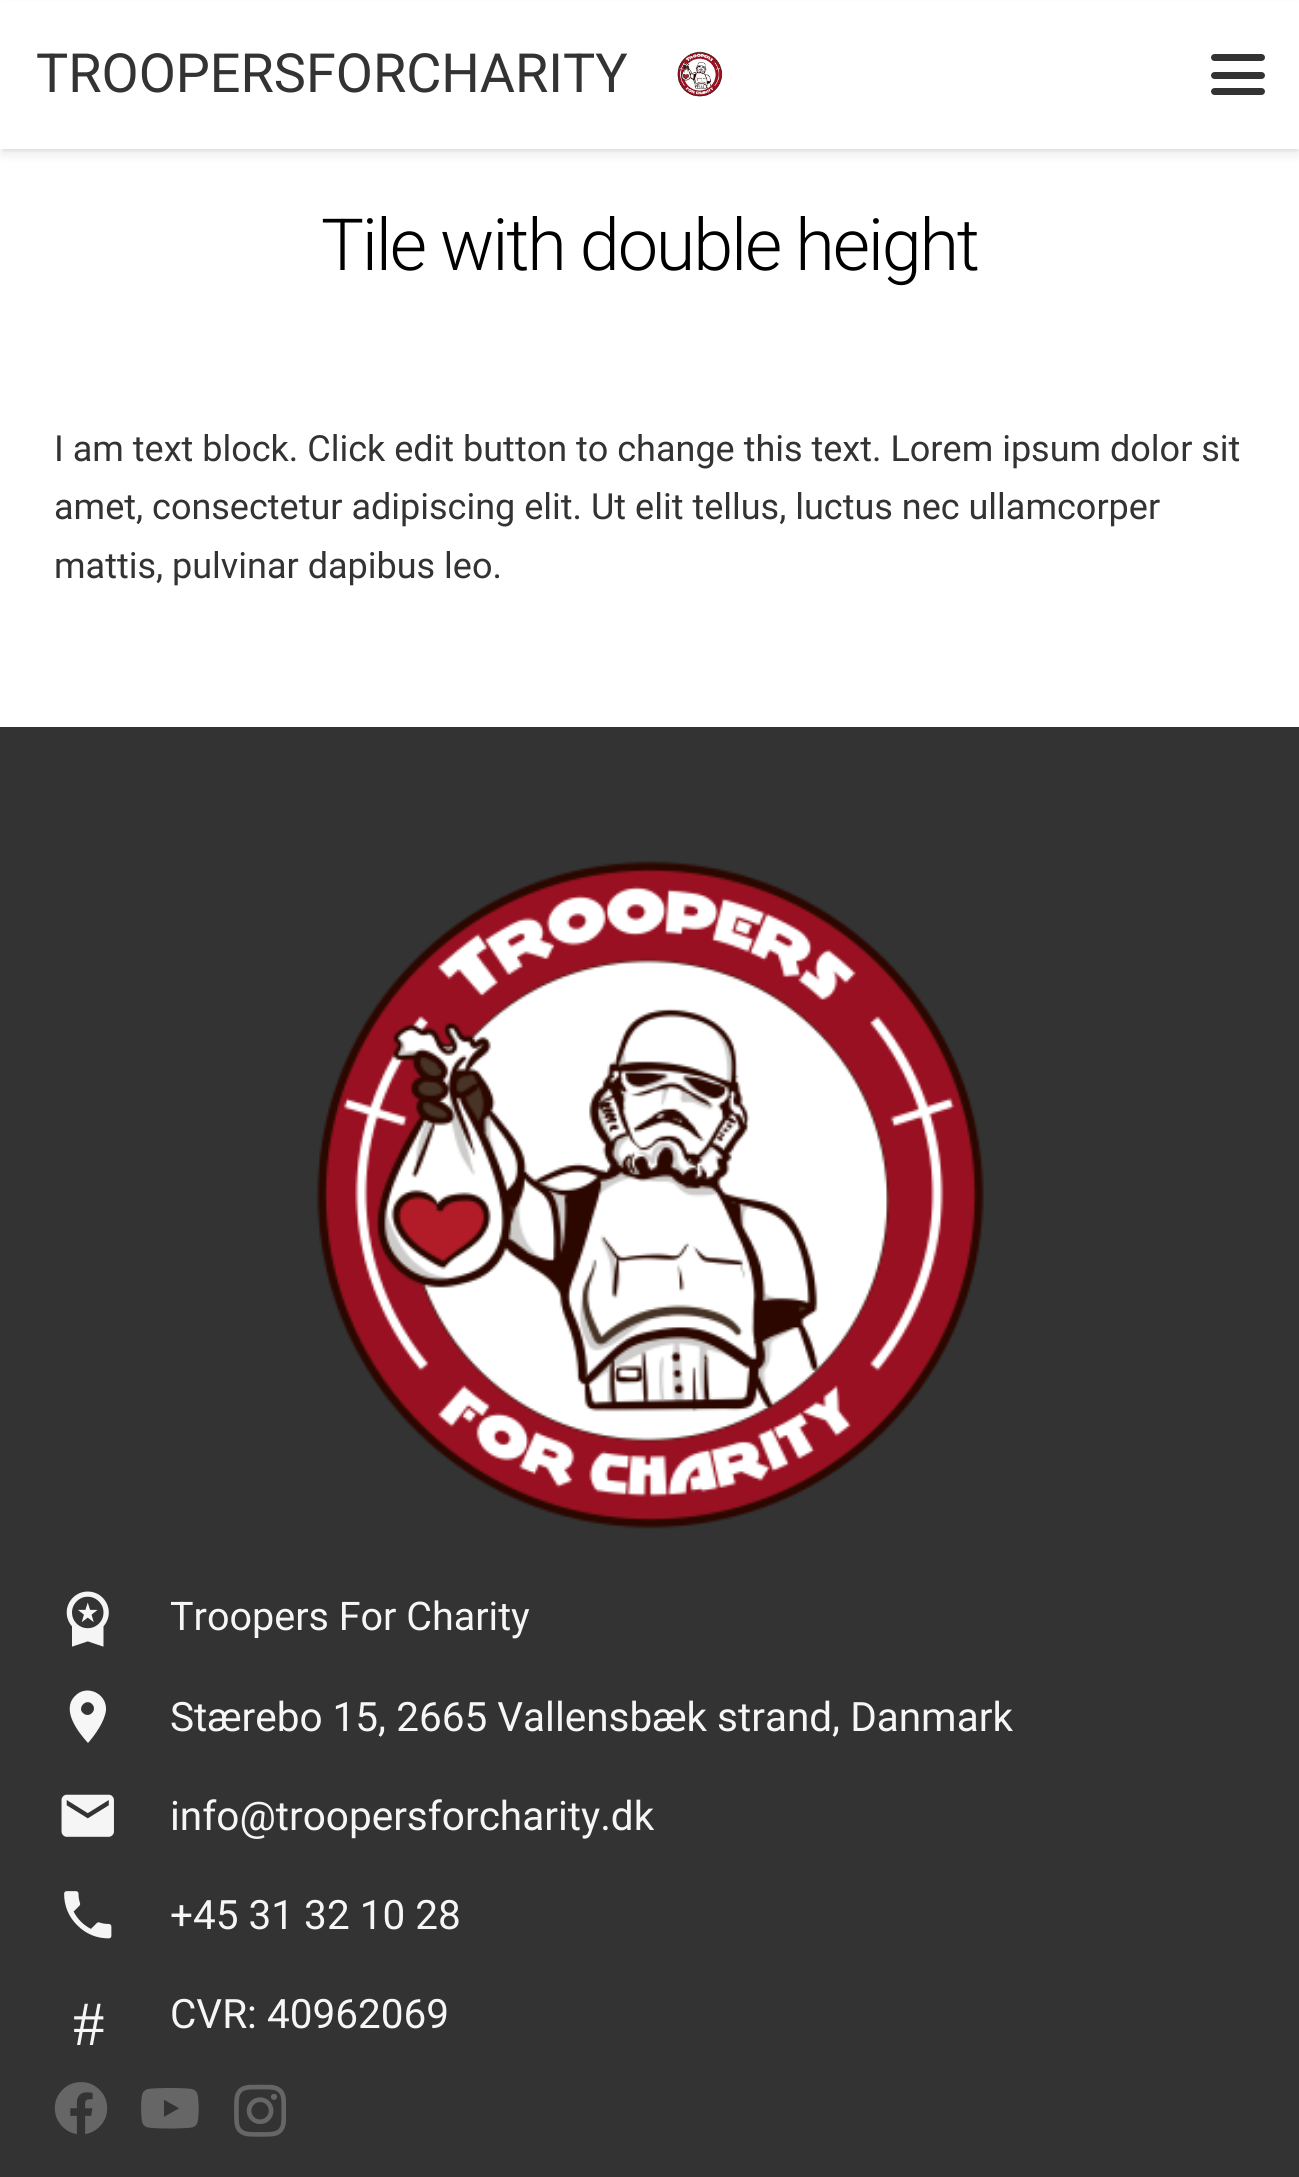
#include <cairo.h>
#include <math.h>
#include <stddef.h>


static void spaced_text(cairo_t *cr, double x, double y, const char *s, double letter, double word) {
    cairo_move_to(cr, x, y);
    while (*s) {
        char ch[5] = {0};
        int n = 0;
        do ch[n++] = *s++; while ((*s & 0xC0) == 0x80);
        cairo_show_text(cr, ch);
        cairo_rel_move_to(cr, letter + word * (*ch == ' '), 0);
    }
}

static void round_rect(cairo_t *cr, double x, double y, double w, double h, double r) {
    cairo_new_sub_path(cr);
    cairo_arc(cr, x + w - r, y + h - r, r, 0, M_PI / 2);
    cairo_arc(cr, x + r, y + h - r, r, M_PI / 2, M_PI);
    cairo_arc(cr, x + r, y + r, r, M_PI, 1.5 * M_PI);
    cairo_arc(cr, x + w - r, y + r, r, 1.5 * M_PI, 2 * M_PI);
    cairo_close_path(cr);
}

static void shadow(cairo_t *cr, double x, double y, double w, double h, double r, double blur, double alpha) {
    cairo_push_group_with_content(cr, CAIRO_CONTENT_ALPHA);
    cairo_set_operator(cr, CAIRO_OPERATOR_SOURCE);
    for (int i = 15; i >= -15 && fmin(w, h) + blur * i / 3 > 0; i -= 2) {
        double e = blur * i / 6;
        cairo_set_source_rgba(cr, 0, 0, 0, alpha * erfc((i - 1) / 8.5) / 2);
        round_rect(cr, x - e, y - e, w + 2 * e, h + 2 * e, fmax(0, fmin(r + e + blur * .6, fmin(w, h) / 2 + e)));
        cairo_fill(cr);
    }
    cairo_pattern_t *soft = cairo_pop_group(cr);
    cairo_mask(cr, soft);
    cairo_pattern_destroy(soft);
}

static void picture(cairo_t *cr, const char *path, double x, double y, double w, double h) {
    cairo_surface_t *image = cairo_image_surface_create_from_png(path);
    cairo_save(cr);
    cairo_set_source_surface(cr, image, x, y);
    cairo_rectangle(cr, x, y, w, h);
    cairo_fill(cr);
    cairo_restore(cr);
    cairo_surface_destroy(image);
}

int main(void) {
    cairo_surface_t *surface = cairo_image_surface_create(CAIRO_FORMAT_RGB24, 1299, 2177);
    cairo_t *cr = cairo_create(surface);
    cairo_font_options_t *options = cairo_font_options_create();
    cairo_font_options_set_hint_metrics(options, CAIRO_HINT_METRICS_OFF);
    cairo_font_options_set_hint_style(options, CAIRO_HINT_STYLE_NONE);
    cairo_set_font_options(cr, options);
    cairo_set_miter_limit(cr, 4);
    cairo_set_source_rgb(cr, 1, 1, 1);
    cairo_paint(cr);
    cairo_set_source_rgb(cr, 0, 0, 0);
    shadow(cr, 2, 7, 1296, 144, 0, 1, 0.05);
    shadow(cr, 2, 9, 1296, 144, 0, 5.5, 0.1);
    cairo_set_source_rgb(cr, 1, 1, 1);
    cairo_rectangle(cr, 0, 2, 1299, 147);
    cairo_fill(cr);
    cairo_select_font_face(cr, "Roboto", CAIRO_FONT_SLANT_NORMAL, CAIRO_FONT_WEIGHT_NORMAL);
    cairo_set_font_size(cr, 54);
    cairo_set_source_rgb(cr, 0.2, 0.2, 0.2);
    cairo_move_to(cr, 36, 92);
    cairo_show_text(cr, "TROOPERSFORCHARITY");
    picture(cr, "img1.png", 677, 51, 46, 46);
    round_rect(cr, 1211, 72, 54, 7, 3.5);
    cairo_fill(cr);
    round_rect(cr, 1211, 54, 54, 7, 3.5);
    cairo_fill(cr);
    round_rect(cr, 1211, 88, 54, 7, 3.5);
    cairo_fill(cr);
    cairo_select_font_face(cr, "Roboto Light", CAIRO_FONT_SLANT_NORMAL, CAIRO_FONT_WEIGHT_NORMAL);
    cairo_set_font_size(cr, 72);
    cairo_set_source_rgb(cr, 0, 0, 0);
    spaced_text(cr, 321, 270, "Tile with double height", -2.2, 0);
    cairo_select_font_face(cr, "Roboto", CAIRO_FONT_SLANT_NORMAL, CAIRO_FONT_WEIGHT_NORMAL);
    cairo_set_font_size(cr, 36);
    cairo_set_source_rgb(cr, 0.2, 0.2, 0.2);
    cairo_move_to(cr, 54, 461);
    cairo_show_text(cr, "I am text block. Click edit button to change this text. Lorem ipsum dolor sit");
    cairo_move_to(cr, 54, 519);
    cairo_show_text(cr, "amet, consectetur adipiscing elit. Ut elit tellus, luctus nec ullamcorper");
    cairo_move_to(cr, 54, 578);
    cairo_show_text(cr, "mattis, pulvinar dapibus leo.");
    cairo_rectangle(cr, 0, 727, 1299, 1450);
    cairo_fill(cr);
    picture(cr, "img2.png", 316, 861, 668, 668);
    picture(cr, "img3.png", 66, 1591, 43, 56);
    cairo_set_font_size(cr, 39.5);
    cairo_set_source_rgb(cr, 0.961, 0.961, 0.961);
    cairo_move_to(cr, 170, 1630);
    cairo_show_text(cr, "Troopers For Charity");
    cairo_new_path(cr);
    cairo_move_to(cr, 83, 1713);
    cairo_curve_to(cr, 89, 1719, 98, 1710, 92, 1704);
    cairo_curve_to(cr, 86, 1698, 77, 1708, 83, 1713);
    cairo_close_path(cr);
    cairo_move_to(cr, 75, 1696);
    cairo_curve_to(cr, 86, 1684, 107, 1693, 106, 1710);
    cairo_curve_to(cr, 105, 1721, 95, 1735, 88, 1743);
    cairo_curve_to(cr, 78, 1732, 61, 1710, 75, 1696);
    cairo_close_path(cr);
    cairo_fill(cr);
    cairo_set_font_size(cr, 40.5);
    cairo_move_to(cr, 170, 1731);
    cairo_show_text(cr, "Stærebo 15, 2665 Vallensbæk strand, Danmark");
    picture(cr, "img4.png", 61, 1794, 53, 43);
    cairo_move_to(cr, 170, 1830);
    cairo_show_text(cr, "info@troopersforcharity.dk");
    picture(cr, "img5.png", 64, 1891, 48, 48);
    cairo_move_to(cr, 170, 1929);
    cairo_show_text(cr, "+45 31 32 10 28");
    cairo_select_font_face(cr, "Liberation Serif", CAIRO_FONT_SLANT_NORMAL, CAIRO_FONT_WEIGHT_NORMAL);
    cairo_set_font_size(cr, 63);
    cairo_move_to(cr, 73, 2045);
    cairo_show_text(cr, "#");
    cairo_select_font_face(cr, "Roboto", CAIRO_FONT_SLANT_NORMAL, CAIRO_FONT_WEIGHT_NORMAL);
    cairo_set_font_size(cr, 40.5);
    cairo_move_to(cr, 170, 2028);
    cairo_show_text(cr, "CVR: 40962069");
    picture(cr, "img6.png", 54, 2082, 54, 52);
    picture(cr, "img7.png", 141, 2088, 58, 41);
    picture(cr, "img8.png", 234, 2084, 52, 53);
    cairo_surface_write_to_png(surface, "page.png");
    cairo_font_options_destroy(options);
    cairo_destroy(cr);
    cairo_surface_destroy(surface);
    return 0;
}
